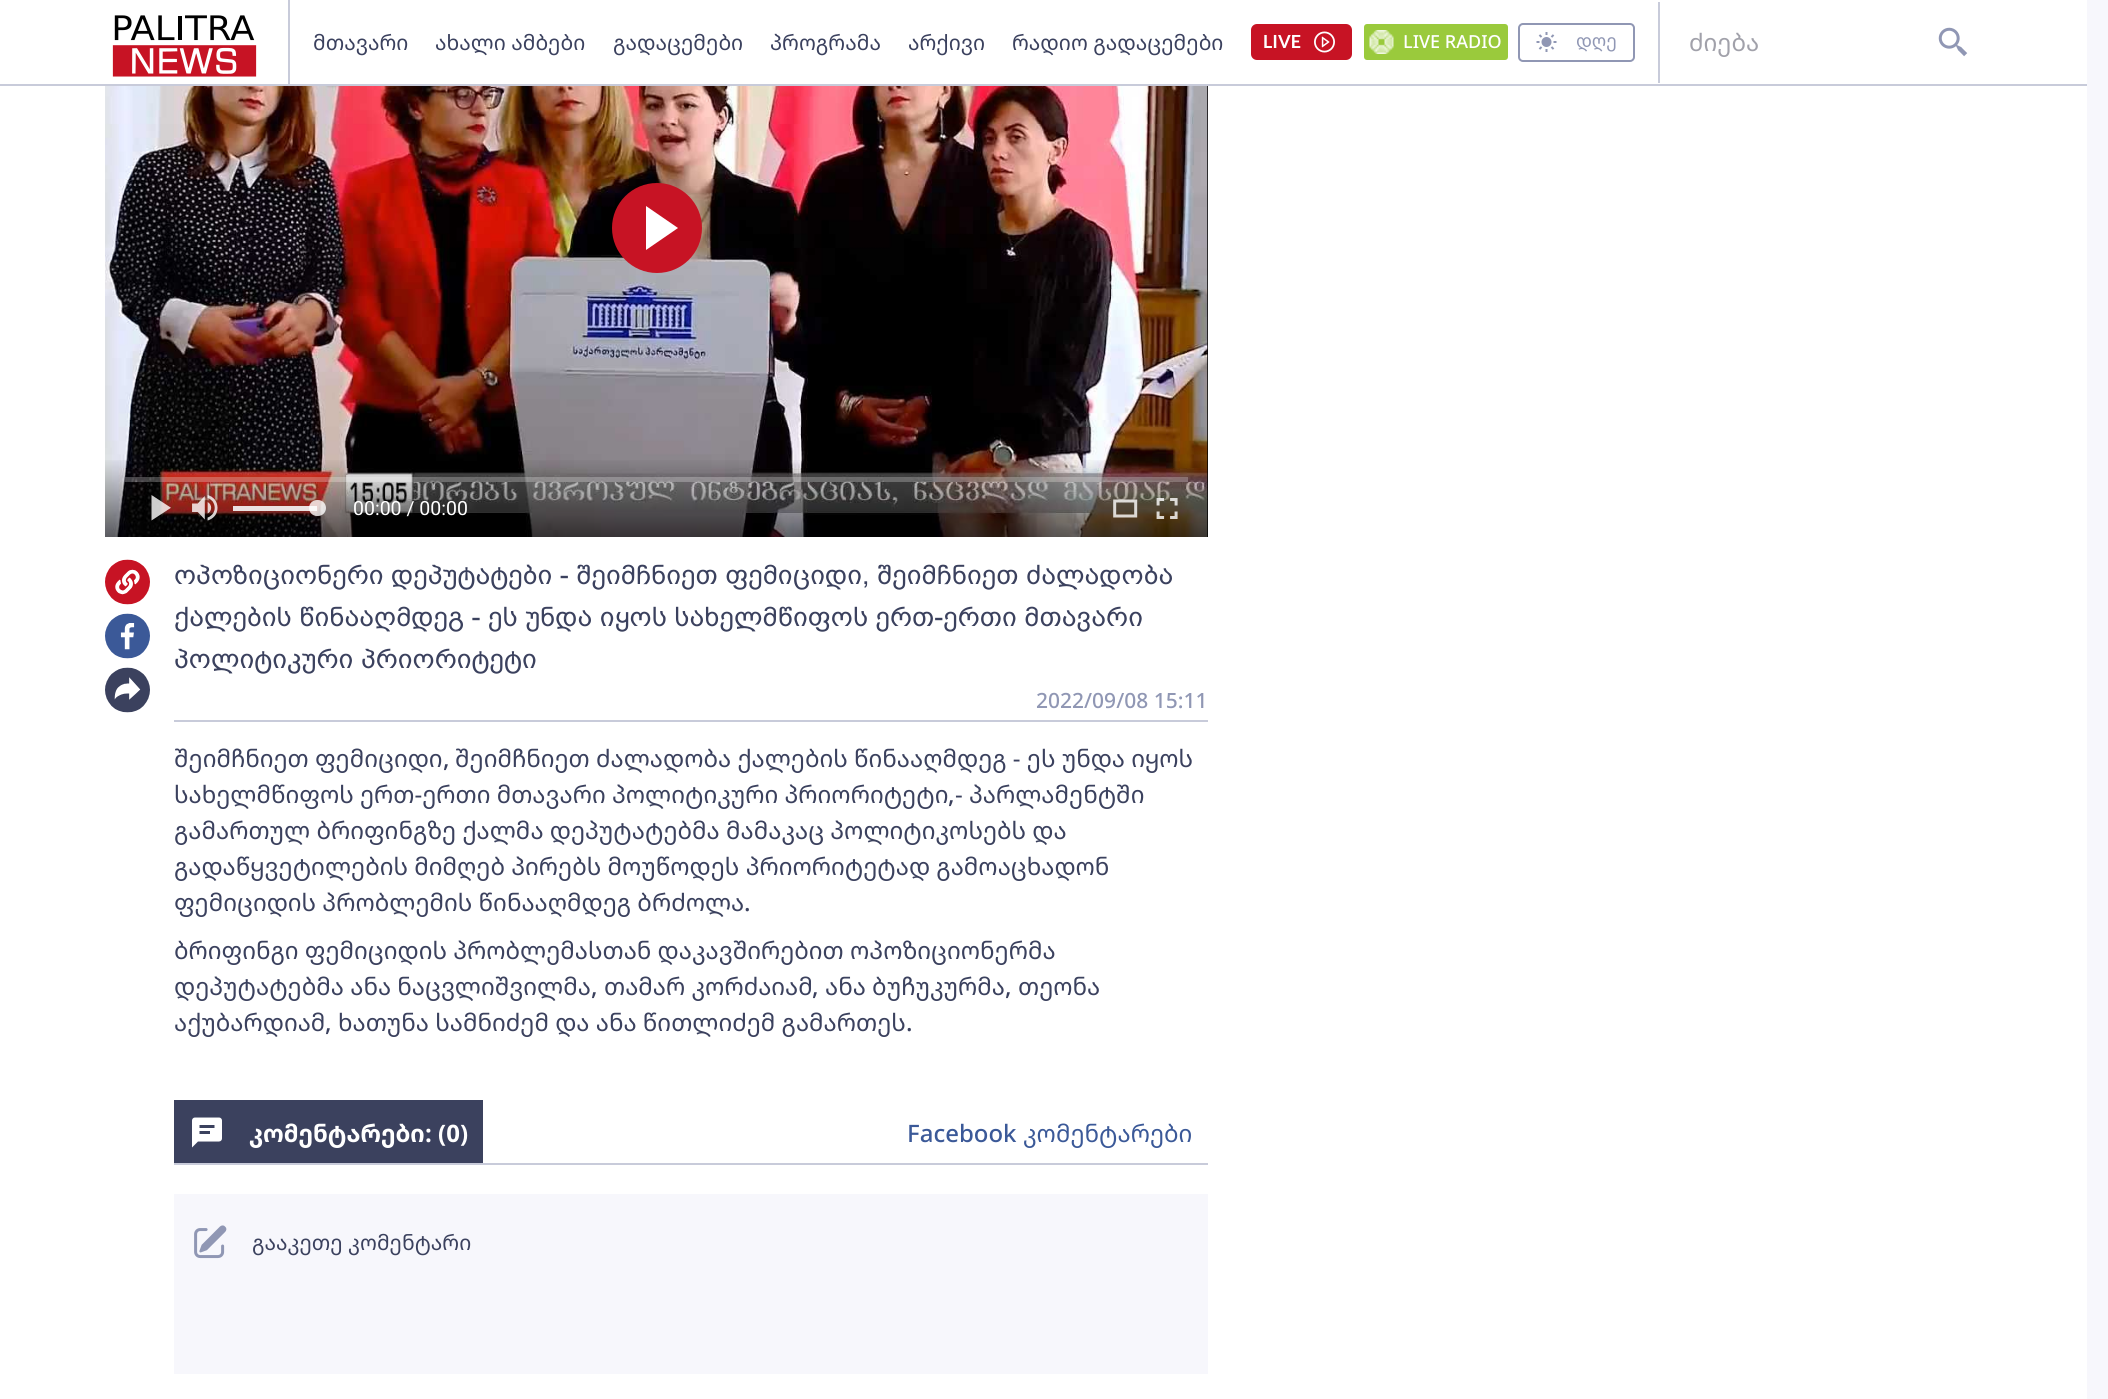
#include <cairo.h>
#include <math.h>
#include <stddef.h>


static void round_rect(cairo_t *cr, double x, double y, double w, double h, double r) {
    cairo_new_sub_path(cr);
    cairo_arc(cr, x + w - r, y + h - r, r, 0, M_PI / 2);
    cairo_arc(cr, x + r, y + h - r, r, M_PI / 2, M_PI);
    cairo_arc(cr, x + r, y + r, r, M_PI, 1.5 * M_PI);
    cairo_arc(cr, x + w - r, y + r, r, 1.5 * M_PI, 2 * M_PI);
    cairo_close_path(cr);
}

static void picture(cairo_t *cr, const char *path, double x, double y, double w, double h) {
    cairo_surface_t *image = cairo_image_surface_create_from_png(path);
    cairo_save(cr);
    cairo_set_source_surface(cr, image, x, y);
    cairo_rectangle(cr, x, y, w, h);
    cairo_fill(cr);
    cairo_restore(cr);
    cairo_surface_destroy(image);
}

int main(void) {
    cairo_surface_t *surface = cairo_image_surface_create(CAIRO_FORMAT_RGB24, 2108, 1399);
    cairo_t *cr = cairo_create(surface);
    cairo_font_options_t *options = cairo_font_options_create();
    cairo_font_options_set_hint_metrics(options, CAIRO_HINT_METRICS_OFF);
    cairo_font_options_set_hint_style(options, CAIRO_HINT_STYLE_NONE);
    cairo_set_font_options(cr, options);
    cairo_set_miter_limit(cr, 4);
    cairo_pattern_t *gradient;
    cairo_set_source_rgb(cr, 0.965, 0.965, 0.988);
    cairo_paint(cr);
    cairo_set_source_rgb(cr, 1, 1, 1);
    cairo_rectangle(cr, 0, 86, 2087, 1313);
    cairo_fill(cr);
    cairo_rectangle(cr, 0, 0, 2087, 84);
    cairo_fill(cr);
    cairo_set_source_rgb(cr, 0.784, 0.796, 0.855);
    cairo_rectangle(cr, 0, 84, 2087, 2);
    cairo_fill(cr);
    cairo_rectangle(cr, 288, 0, 2, 84);
    cairo_fill(cr);
    picture(cr, "img1.png", 112, 15, 145, 62);
    cairo_rectangle(cr, 1658, 2, 2, 81);
    cairo_fill(cr);
    cairo_select_font_face(cr, "Noto Sans Georgian", CAIRO_FONT_SLANT_NORMAL, CAIRO_FONT_WEIGHT_NORMAL);
    cairo_set_font_size(cr, 21);
    cairo_set_source_rgb(cr, 0.231, 0.255, 0.369);
    cairo_move_to(cr, 313, 50);
    cairo_show_text(cr, "მთავარი");
    cairo_move_to(cr, 435, 50);
    cairo_show_text(cr, "ახალი ამბები");
    cairo_move_to(cr, 613, 50);
    cairo_show_text(cr, "გადაცემები");
    cairo_move_to(cr, 770, 50);
    cairo_show_text(cr, "პროგრამა");
    cairo_move_to(cr, 908, 50);
    cairo_show_text(cr, "არქივი");
    cairo_move_to(cr, 1012, 50);
    cairo_show_text(cr, "რადიო გადაცემები");
    cairo_set_source_rgb(cr, 0.78, 0.075, 0.141);
    round_rect(cr, 1251, 24, 101, 36, 6);
    cairo_fill(cr);
    cairo_select_font_face(cr, "Lato", CAIRO_FONT_SLANT_NORMAL, CAIRO_FONT_WEIGHT_BOLD);
    cairo_set_font_size(cr, 18);
    cairo_set_source_rgb(cr, 1, 1, 1);
    cairo_move_to(cr, 1263, 48);
    cairo_show_text(cr, "LIVE");
    picture(cr, "img2.png", 1314, 31, 21, 22);
    cairo_set_source_rgb(cr, 0.604, 0.792, 0.235);
    round_rect(cr, 1364, 24, 144, 36, 3);
    cairo_fill(cr);
    picture(cr, "img3.png", 1369, 30, 25, 24);
    cairo_select_font_face(cr, "Noto Sans Medium", CAIRO_FONT_SLANT_NORMAL, CAIRO_FONT_WEIGHT_NORMAL);
    cairo_set_source_rgb(cr, 1, 1, 1);
    cairo_move_to(cr, 1403, 48);
    cairo_show_text(cr, "LIVE RADIO");
    round_rect(cr, 1519, 24, 115, 37, 4);
    cairo_set_source_rgb(cr, 0.565, 0.592, 0.706);
    cairo_stroke(cr);
    picture(cr, "img4.png", 1536, 32, 21, 20);
    cairo_select_font_face(cr, "Noto Sans Georgian", CAIRO_FONT_SLANT_NORMAL, CAIRO_FONT_WEIGHT_NORMAL);
    cairo_move_to(cr, 1576, 47);
    cairo_show_text(cr, "დღე");
    cairo_set_font_size(cr, 24);
    cairo_set_source_rgb(cr, 0.631, 0.631, 0.667);
    cairo_move_to(cr, 1689, 51);
    cairo_show_text(cr, "ძიება");
    picture(cr, "img5.png", 1938, 27, 30, 30);
    cairo_set_source_rgb(cr, 0, 0, 0);
    cairo_rectangle(cr, 1207, 86, 1, 451);
    cairo_fill(cr);
    picture(cr, "img6.png", 105, 86, 1103, 451);
    cairo_set_source_rgb(cr, 0.78, 0.075, 0.141);
    cairo_arc(cr, 657, 228, 45, 0, 2 * M_PI);
    cairo_fill(cr);
    cairo_set_source_rgb(cr, 1, 1, 1);
    cairo_new_path(cr);
    cairo_move_to(cr, 646, 250);
    cairo_line_to(cr, 646, 206);
    cairo_line_to(cr, 678, 228);
    cairo_close_path(cr);
    cairo_fill(cr);
    gradient = cairo_pattern_create_linear(656, 457, 656, 537);
    cairo_pattern_add_color_stop_rgba(gradient, 0, 0, 0, 0, 0);
    cairo_pattern_add_color_stop_rgba(gradient, 1, 0, 0, 0, 0.6);
    cairo_set_source(cr, gradient);
    cairo_pattern_destroy(gradient);
    cairo_rectangle(cr, 105, 460, 1103, 77);
    cairo_fill(cr);
    cairo_set_source_rgba(cr, 1, 1, 1, 0.25);
    cairo_rectangle(cr, 125, 477, 1063, 5);
    cairo_fill(cr);
    picture(cr, "img7.png", 151, 495, 20, 26);
    picture(cr, "img8.png", 192, 495, 26, 26);
    cairo_set_source_rgba(cr, 0.671, 0.675, 0.675, 0.54);
    cairo_rectangle(cr, 233, 506, 84, 5);
    cairo_fill(cr);
    cairo_set_source_rgba(cr, 1, 1, 1, 0.8);
    cairo_rectangle(cr, 233, 506, 84, 5);
    cairo_fill(cr);
    round_rect(cr, 309, 500, 17, 16, 8);
    cairo_fill(cr);
    cairo_select_font_face(cr, "Roboto", CAIRO_FONT_SLANT_NORMAL, CAIRO_FONT_WEIGHT_NORMAL);
    cairo_set_font_size(cr, 19.5);
    cairo_set_source_rgb(cr, 1, 1, 1);
    cairo_move_to(cr, 353, 515);
    cairo_show_text(cr, "00:00 / 00:00");
    picture(cr, "img9.png", 1113, 499, 25, 19);
    picture(cr, "img10.png", 1156, 498, 22, 21);
    picture(cr, "img11.png", 105, 559, 45, 46);
    picture(cr, "img12.png", 105, 613, 45, 46);
    picture(cr, "img13.png", 105, 667, 45, 46);
    cairo_select_font_face(cr, "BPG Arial", CAIRO_FONT_SLANT_NORMAL, CAIRO_FONT_WEIGHT_NORMAL);
    cairo_set_font_size(cr, 27);
    cairo_set_source_rgb(cr, 0.231, 0.255, 0.369);
    cairo_move_to(cr, 174, 584);
    cairo_show_text(cr, "ოპოზიციონერი დეპუტატები - შეიმჩნიეთ ფემიციდი, შეიმჩნიეთ ძალადობა");
    cairo_move_to(cr, 174, 626);
    cairo_show_text(cr, "ქალების წინააღმდეგ - ეს უნდა იყოს სახელმწიფოს ერთ-ერთი მთავარი");
    cairo_move_to(cr, 174, 668);
    cairo_show_text(cr, "პოლიტიკური პრიორიტეტი");
    cairo_select_font_face(cr, "Noto Sans Medium", CAIRO_FONT_SLANT_NORMAL, CAIRO_FONT_WEIGHT_NORMAL);
    cairo_set_font_size(cr, 21);
    cairo_set_source_rgb(cr, 0.565, 0.592, 0.706);
    cairo_move_to(cr, 1036, 708);
    cairo_show_text(cr, "2022/09/08 15:11");
    cairo_set_source_rgb(cr, 0.784, 0.796, 0.855);
    cairo_rectangle(cr, 174, 720, 1034, 2);
    cairo_fill(cr);
    cairo_select_font_face(cr, "Noto Sans Georgian", CAIRO_FONT_SLANT_NORMAL, CAIRO_FONT_WEIGHT_NORMAL);
    cairo_set_font_size(cr, 24);
    cairo_set_source_rgb(cr, 0.231, 0.255, 0.369);
    cairo_move_to(cr, 174, 767);
    cairo_show_text(cr, "შეიმჩნიეთ ფემიციდი");
    cairo_select_font_face(cr, "Noto Sans Medium", CAIRO_FONT_SLANT_NORMAL, CAIRO_FONT_WEIGHT_NORMAL);
    cairo_move_to(cr, 443, 767);
    cairo_show_text(cr, ",");
    cairo_select_font_face(cr, "Noto Sans Georgian", CAIRO_FONT_SLANT_NORMAL, CAIRO_FONT_WEIGHT_NORMAL);
    cairo_move_to(cr, 455, 767);
    cairo_show_text(cr, "შეიმჩნიეთ ძალადობა ქალების წინააღმდეგ - ეს უნდა იყოს");
    cairo_move_to(cr, 174, 803);
    cairo_show_text(cr, "სახელმწიფოს ერთ-ერთი მთავარი პოლიტიკური პრიორიტეტი");
    cairo_select_font_face(cr, "Noto Sans Medium", CAIRO_FONT_SLANT_NORMAL, CAIRO_FONT_WEIGHT_NORMAL);
    cairo_move_to(cr, 948, 803);
    cairo_show_text(cr, ",");
    cairo_select_font_face(cr, "Noto Sans Georgian", CAIRO_FONT_SLANT_NORMAL, CAIRO_FONT_WEIGHT_NORMAL);
    cairo_move_to(cr, 955, 803);
    cairo_show_text(cr, "- პარლამენტში");
    cairo_move_to(cr, 174, 839);
    cairo_show_text(cr, "გამართულ ბრიფინგზე ქალმა დეპუტატებმა მამაკაც პოლიტიკოსებს და");
    cairo_move_to(cr, 174, 875);
    cairo_show_text(cr, "გადაწყვეტილების მიმღებ პირებს მოუწოდეს პრიორიტეტად გამოაცხადონ");
    cairo_move_to(cr, 174, 911);
    cairo_show_text(cr, "ფემიციდის პრობლემის წინააღმდეგ ბრძოლა");
    cairo_select_font_face(cr, "Noto Sans Medium", CAIRO_FONT_SLANT_NORMAL, CAIRO_FONT_WEIGHT_NORMAL);
    cairo_move_to(cr, 744, 911);
    cairo_show_text(cr, ".");
    cairo_select_font_face(cr, "Noto Sans Georgian", CAIRO_FONT_SLANT_NORMAL, CAIRO_FONT_WEIGHT_NORMAL);
    cairo_move_to(cr, 174, 959);
    cairo_show_text(cr, "ბრიფინგი ფემიციდის პრობლემასთან დაკავშირებით ოპოზიციონერმა");
    cairo_move_to(cr, 174, 995);
    cairo_show_text(cr, "დეპუტატებმა ანა ნაცვლიშვილმა");
    cairo_select_font_face(cr, "Noto Sans Medium", CAIRO_FONT_SLANT_NORMAL, CAIRO_FONT_WEIGHT_NORMAL);
    cairo_move_to(cr, 591, 995);
    cairo_show_text(cr, ",");
    cairo_select_font_face(cr, "Noto Sans Georgian", CAIRO_FONT_SLANT_NORMAL, CAIRO_FONT_WEIGHT_NORMAL);
    cairo_move_to(cr, 604, 995);
    cairo_show_text(cr, "თამარ კორძაიამ");
    cairo_select_font_face(cr, "Noto Sans Medium", CAIRO_FONT_SLANT_NORMAL, CAIRO_FONT_WEIGHT_NORMAL);
    cairo_move_to(cr, 812, 995);
    cairo_show_text(cr, ",");
    cairo_select_font_face(cr, "Noto Sans Georgian", CAIRO_FONT_SLANT_NORMAL, CAIRO_FONT_WEIGHT_NORMAL);
    cairo_move_to(cr, 825, 995);
    cairo_show_text(cr, "ანა ბუჩუკურმა");
    cairo_select_font_face(cr, "Noto Sans Medium", CAIRO_FONT_SLANT_NORMAL, CAIRO_FONT_WEIGHT_NORMAL);
    cairo_move_to(cr, 1005, 995);
    cairo_show_text(cr, ",");
    cairo_select_font_face(cr, "Noto Sans Georgian", CAIRO_FONT_SLANT_NORMAL, CAIRO_FONT_WEIGHT_NORMAL);
    cairo_move_to(cr, 1018, 995);
    cairo_show_text(cr, "თეონა");
    cairo_move_to(cr, 174, 1031);
    cairo_show_text(cr, "აქუბარდიამ");
    cairo_select_font_face(cr, "Noto Sans Medium", CAIRO_FONT_SLANT_NORMAL, CAIRO_FONT_WEIGHT_NORMAL);
    cairo_move_to(cr, 325, 1031);
    cairo_show_text(cr, ",");
    cairo_select_font_face(cr, "Noto Sans Georgian", CAIRO_FONT_SLANT_NORMAL, CAIRO_FONT_WEIGHT_NORMAL);
    cairo_move_to(cr, 338, 1031);
    cairo_show_text(cr, "ხათუნა სამნიძემ და ანა წითლიძემ გამართეს");
    cairo_select_font_face(cr, "Noto Sans Medium", CAIRO_FONT_SLANT_NORMAL, CAIRO_FONT_WEIGHT_NORMAL);
    cairo_move_to(cr, 906, 1031);
    cairo_show_text(cr, ".");
    cairo_set_source_rgb(cr, 0.784, 0.796, 0.855);
    cairo_rectangle(cr, 174, 1163, 1034, 2);
    cairo_fill(cr);
    cairo_set_source_rgb(cr, 0.231, 0.255, 0.369);
    cairo_rectangle(cr, 174, 1100, 309, 63);
    cairo_fill(cr);
    picture(cr, "img14.png", 192, 1117, 30, 31);
    cairo_select_font_face(cr, "Noto Sans Georgian", CAIRO_FONT_SLANT_NORMAL, CAIRO_FONT_WEIGHT_BOLD);
    cairo_set_source_rgb(cr, 1, 1, 1);
    cairo_move_to(cr, 249, 1142);
    cairo_show_text(cr, "კომენტარები");
    cairo_select_font_face(cr, "Noto Sans", CAIRO_FONT_SLANT_NORMAL, CAIRO_FONT_WEIGHT_BOLD);
    cairo_move_to(cr, 425, 1142);
    cairo_show_text(cr, ": (0)");
    cairo_select_font_face(cr, "Noto Sans Medium", CAIRO_FONT_SLANT_NORMAL, CAIRO_FONT_WEIGHT_NORMAL);
    cairo_set_source_rgb(cr, 0.231, 0.349, 0.596);
    cairo_move_to(cr, 907, 1142);
    cairo_show_text(cr, "Facebook");
    cairo_select_font_face(cr, "Noto Sans Georgian", CAIRO_FONT_SLANT_NORMAL, CAIRO_FONT_WEIGHT_NORMAL);
    cairo_move_to(cr, 1023, 1142);
    cairo_show_text(cr, "კომენტარები");
    cairo_set_source_rgb(cr, 0.965, 0.965, 0.988);
    cairo_rectangle(cr, 174, 1194, 1034, 180);
    cairo_fill(cr);
    picture(cr, "img15.png", 194, 1225, 33, 34);
    cairo_set_font_size(cr, 21);
    cairo_set_source_rgb(cr, 0.231, 0.255, 0.369);
    cairo_move_to(cr, 252, 1250);
    cairo_show_text(cr, "გააკეთე კომენტარი");
    cairo_surface_write_to_png(surface, "page.png");
    cairo_font_options_destroy(options);
    cairo_destroy(cr);
    cairo_surface_destroy(surface);
    return 0;
}
